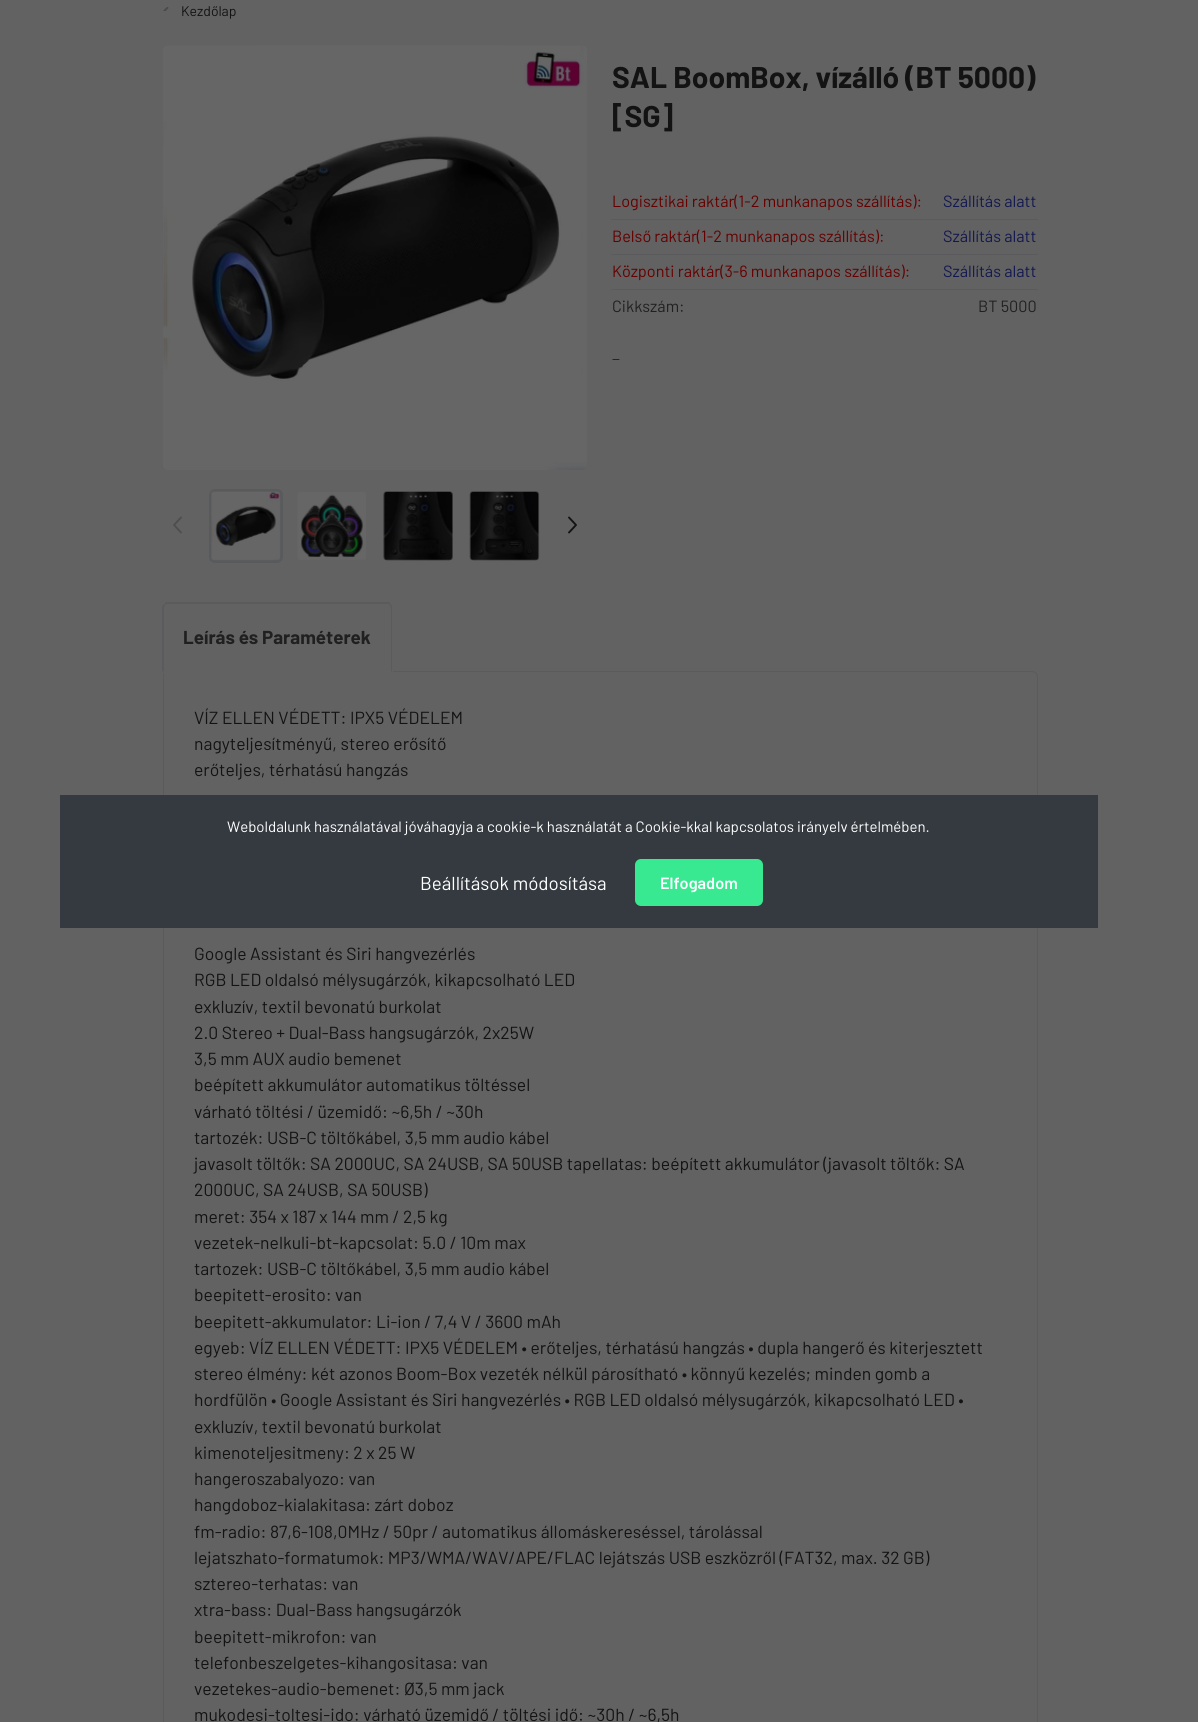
#include <cairo.h>
#include <math.h>
#include <stddef.h>


static void round_rect(cairo_t *cr, double x, double y, double w, double h, double r) {
    cairo_new_sub_path(cr);
    cairo_arc(cr, x + w - r, y + h - r, r, 0, M_PI / 2);
    cairo_arc(cr, x + r, y + h - r, r, M_PI / 2, M_PI);
    cairo_arc(cr, x + r, y + r, r, M_PI, 1.5 * M_PI);
    cairo_arc(cr, x + w - r, y + r, r, 1.5 * M_PI, 2 * M_PI);
    cairo_close_path(cr);
}

static void picture(cairo_t *cr, const char *path, double x, double y, double w, double h) {
    cairo_surface_t *image = cairo_image_surface_create_from_png(path);
    cairo_save(cr);
    cairo_set_source_surface(cr, image, x, y);
    cairo_rectangle(cr, x, y, w, h);
    cairo_fill(cr);
    cairo_restore(cr);
    cairo_surface_destroy(image);
}

int main(void) {
    cairo_surface_t *surface = cairo_image_surface_create(CAIRO_FORMAT_RGB24, 1198, 1722);
    cairo_t *cr = cairo_create(surface);
    cairo_font_options_t *options = cairo_font_options_create();
    cairo_font_options_set_hint_metrics(options, CAIRO_HINT_METRICS_OFF);
    cairo_font_options_set_hint_style(options, CAIRO_HINT_STYLE_NONE);
    cairo_set_font_options(cr, options);
    cairo_set_miter_limit(cr, 4);
    cairo_set_source_rgb(cr, 0.384, 0.384, 0.384);
    cairo_paint(cr);
    picture(cr, "img1.png", 163, 7, 6, 4);
    cairo_select_font_face(cr, "Barlow", CAIRO_FONT_SLANT_NORMAL, CAIRO_FONT_WEIGHT_NORMAL);
    cairo_set_font_size(cr, 14);
    cairo_set_source_rgb(cr, 0.075, 0.078, 0.078);
    cairo_move_to(cr, 181, 16);
    cairo_show_text(cr, "Kezdőlap");
    picture(cr, "img2.png", 163, 45, 424, 425);
    cairo_new_path(cr);
    cairo_move_to(cr, 181, 532.5);
    cairo_line_to(cr, 174, 525);
    cairo_line_to(cr, 181, 517.5);
    cairo_set_source_rgb(cr, 0.306, 0.306, 0.306);
    cairo_set_line_width(cr, 1.9);
    cairo_set_line_cap(cr, CAIRO_LINE_CAP_ROUND);
    cairo_set_line_join(cr, CAIRO_LINE_JOIN_ROUND);
    cairo_stroke(cr);
    round_rect(cr, 210.5, 490.5, 71, 71, 4.5);
    cairo_set_source_rgb(cr, 0.349, 0.353, 0.361);
    cairo_set_line_width(cr, 3);
    cairo_set_line_cap(cr, CAIRO_LINE_CAP_BUTT);
    cairo_set_line_join(cr, CAIRO_LINE_JOIN_MITER);
    cairo_stroke(cr);
    picture(cr, "img3.png", 211, 491, 70, 70);
    picture(cr, "img4.png", 297, 492, 69, 68);
    picture(cr, "img5.png", 383, 491, 70, 70);
    picture(cr, "img6.png", 469, 491, 71, 70);
    cairo_new_path(cr);
    cairo_move_to(cr, 569, 532.5);
    cairo_line_to(cr, 576, 525);
    cairo_line_to(cr, 569, 517.5);
    cairo_set_source_rgb(cr, 0.075, 0.078, 0.078);
    cairo_set_line_width(cr, 1.9);
    cairo_set_line_cap(cr, CAIRO_LINE_CAP_ROUND);
    cairo_set_line_join(cr, CAIRO_LINE_JOIN_ROUND);
    cairo_stroke(cr);
    cairo_select_font_face(cr, "Barlow", CAIRO_FONT_SLANT_NORMAL, CAIRO_FONT_WEIGHT_BOLD);
    cairo_set_font_size(cr, 30);
    cairo_move_to(cr, 612, 88);
    cairo_show_text(cr, "SAL BoomBox, vízálló (BT 5000)");
    cairo_move_to(cr, 612, 127);
    cairo_show_text(cr, "[SG]");
    cairo_select_font_face(cr, "Barlow", CAIRO_FONT_SLANT_NORMAL, CAIRO_FONT_WEIGHT_NORMAL);
    cairo_set_font_size(cr, 16.25);
    cairo_set_source_rgb(cr, 0.4, 0, 0);
    cairo_move_to(cr, 612, 207);
    cairo_show_text(cr, "Logisztikai raktár(1-2 munkanapos szállítás):");
    cairo_set_source_rgb(cr, 0.071, 0.094, 0.314);
    cairo_move_to(cr, 943, 207);
    cairo_show_text(cr, "Szállítás alatt");
    cairo_set_source_rgb(cr, 0.4, 0, 0);
    cairo_move_to(cr, 612, 242);
    cairo_show_text(cr, "Belső raktár(1-2 munkanapos szállítás):");
    cairo_set_source_rgb(cr, 0.357, 0.357, 0.369);
    cairo_rectangle(cr, 611, 219, 427, 1);
    cairo_fill(cr);
    cairo_set_source_rgb(cr, 0.071, 0.094, 0.314);
    cairo_move_to(cr, 943, 242);
    cairo_show_text(cr, "Szállítás alatt");
    cairo_set_source_rgb(cr, 0.4, 0, 0);
    cairo_move_to(cr, 612, 277);
    cairo_show_text(cr, "Központi raktár(3-6 munkanapos szállítás):");
    cairo_set_source_rgb(cr, 0.357, 0.357, 0.369);
    cairo_rectangle(cr, 611, 254, 427, 1);
    cairo_fill(cr);
    cairo_set_source_rgb(cr, 0.071, 0.094, 0.314);
    cairo_move_to(cr, 943, 277);
    cairo_show_text(cr, "Szállítás alatt");
    cairo_set_source_rgb(cr, 0.125, 0.125, 0.129);
    cairo_move_to(cr, 612, 312);
    cairo_show_text(cr, "Cikkszám:");
    cairo_set_source_rgb(cr, 0.357, 0.357, 0.369);
    cairo_rectangle(cr, 611, 289, 427, 1);
    cairo_fill(cr);
    cairo_set_source_rgb(cr, 0.125, 0.125, 0.129);
    cairo_move_to(cr, 978, 312);
    cairo_show_text(cr, "BT 5000");
    cairo_move_to(cr, 612, 360);
    cairo_show_text(cr, "_");
    cairo_new_path(cr);
    cairo_move_to(cr, 163.5, 671.5);
    cairo_line_to(cr, 1032, 671.5);
    cairo_curve_to(cr, 1035, 671.5, 1037.5, 674, 1037.5, 677);
    cairo_line_to(cr, 1037.5, 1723);
    cairo_curve_to(cr, 1037.5, 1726, 1035, 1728.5, 1032, 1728.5);
    cairo_line_to(cr, 169, 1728.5);
    cairo_curve_to(cr, 166, 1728.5, 163.5, 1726, 163.5, 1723);
    cairo_close_path(cr);
    cairo_set_source_rgb(cr, 0.357, 0.357, 0.369);
    cairo_set_line_width(cr, 1);
    cairo_set_line_cap(cr, CAIRO_LINE_CAP_BUTT);
    cairo_set_line_join(cr, CAIRO_LINE_JOIN_MITER);
    cairo_stroke(cr);
    cairo_set_source_rgb(cr, 0.384, 0.384, 0.384);
    cairo_new_path(cr);
    cairo_move_to(cr, 169, 603);
    cairo_line_to(cr, 387, 603);
    cairo_curve_to(cr, 390.5, 603, 393, 605.5, 393, 609);
    cairo_line_to(cr, 393, 673);
    cairo_line_to(cr, 163, 673);
    cairo_line_to(cr, 163, 609);
    cairo_curve_to(cr, 163, 605.5, 165.5, 603, 169, 603);
    cairo_close_path(cr);
    cairo_fill(cr);
    cairo_set_source_rgb(cr, 0.357, 0.357, 0.369);
    cairo_new_path(cr);
    cairo_move_to(cr, 169, 604);
    cairo_curve_to(cr, 168, 604, 166, 604, 165, 605);
    cairo_line_to(cr, 164, 604);
    cairo_line_to(cr, 166, 602);
    cairo_line_to(cr, 389, 602);
    cairo_line_to(cr, 391, 604);
    cairo_line_to(cr, 390, 605);
    cairo_curve_to(cr, 389, 604, 388, 604, 386, 604);
    cairo_close_path(cr);
    cairo_fill(cr);
    cairo_new_path(cr);
    cairo_move_to(cr, 391, 604);
    cairo_curve_to(cr, 392, 606, 392, 607, 392, 609);
    cairo_line_to(cr, 392, 672);
    cairo_line_to(cr, 391, 671);
    cairo_line_to(cr, 391, 609);
    cairo_curve_to(cr, 391, 608, 390, 606, 390, 605);
    cairo_close_path(cr);
    cairo_fill(cr);
    cairo_new_path(cr);
    cairo_move_to(cr, 162, 606);
    cairo_line_to(cr, 164, 604);
    cairo_line_to(cr, 165, 605);
    cairo_curve_to(cr, 164, 606, 164, 608, 164, 609);
    cairo_line_to(cr, 164, 671);
    cairo_line_to(cr, 162, 672);
    cairo_close_path(cr);
    cairo_fill(cr);
    cairo_select_font_face(cr, "Barlow", CAIRO_FONT_SLANT_NORMAL, CAIRO_FONT_WEIGHT_BOLD);
    cairo_set_font_size(cr, 18.75);
    cairo_set_source_rgb(cr, 0.125, 0.125, 0.129);
    cairo_move_to(cr, 183, 644);
    cairo_show_text(cr, "Leírás és Paraméterek");
    cairo_select_font_face(cr, "Barlow", CAIRO_FONT_SLANT_NORMAL, CAIRO_FONT_WEIGHT_NORMAL);
    cairo_set_font_size(cr, 17.5);
    cairo_set_source_rgb(cr, 0.075, 0.078, 0.078);
    cairo_move_to(cr, 194, 724);
    cairo_show_text(cr, "VÍZ ELLEN VÉDETT: IPX5 VÉDELEM");
    cairo_move_to(cr, 194, 750);
    cairo_show_text(cr, "nagyteljesítményű, stereo erősítő");
    cairo_move_to(cr, 194, 776);
    cairo_show_text(cr, "erőteljes, térhatású hangzás");
    cairo_move_to(cr, 194, 960);
    cairo_show_text(cr, "Google Assistant és Siri hangvezérlés");
    cairo_move_to(cr, 194, 986);
    cairo_show_text(cr, "RGB LED oldalsó mélysugárzók, kikapcsolható LED");
    cairo_move_to(cr, 194, 1013);
    cairo_show_text(cr, "exkluzív, textil bevonatú burkolat");
    cairo_move_to(cr, 194, 1039);
    cairo_show_text(cr, "2.0 Stereo + Dual-Bass hangsugárzók, 2x25W");
    cairo_move_to(cr, 194, 1065);
    cairo_show_text(cr, "3,5 mm AUX audio bemenet");
    cairo_move_to(cr, 194, 1091);
    cairo_show_text(cr, "beépített akkumulátor automatikus töltéssel");
    cairo_move_to(cr, 194, 1118);
    cairo_show_text(cr, "várható töltési / üzemidő: ~6,5h / ~30h");
    cairo_move_to(cr, 194, 1144);
    cairo_show_text(cr, "tartozék: USB-C töltőkábel, 3,5 mm audio kábel");
    cairo_move_to(cr, 194, 1170);
    cairo_show_text(cr, "javasolt töltők: SA 2000UC, SA 24USB, SA 50USB tapellatas: beépített akkumulátor (javasolt töltők: SA");
    cairo_move_to(cr, 194, 1196);
    cairo_show_text(cr, "2000UC, SA 24USB, SA 50USB)");
    cairo_move_to(cr, 194, 1223);
    cairo_show_text(cr, "meret: 354 x 187 x 144 mm / 2,5 kg");
    cairo_move_to(cr, 194, 1249);
    cairo_show_text(cr, "vezetek-nelkuli-bt-kapcsolat: 5.0 / 10m max");
    cairo_move_to(cr, 194, 1275);
    cairo_show_text(cr, "tartozek: USB-C töltőkábel, 3,5 mm audio kábel");
    cairo_move_to(cr, 194, 1301);
    cairo_show_text(cr, "beepitett-erosito: van");
    cairo_move_to(cr, 194, 1328);
    cairo_show_text(cr, "beepitett-akkumulator: Li-ion / 7,4 V / 3600 mAh");
    cairo_move_to(cr, 194, 1354);
    cairo_show_text(cr, "egyeb: VÍZ ELLEN VÉDETT: IPX5 VÉDELEM • erőteljes, térhatású hangzás • dupla hangerő és kiterjesztett");
    cairo_move_to(cr, 194, 1380);
    cairo_show_text(cr, "stereo élmény: két azonos Boom-Box vezeték nélkül párosítható • könnyű kezelés; minden gomb a");
    cairo_move_to(cr, 194, 1406);
    cairo_show_text(cr, "hordfülön • Google Assistant és Siri hangvezérlés • RGB LED oldalsó mélysugárzók, kikapcsolható LED •");
    cairo_move_to(cr, 194, 1433);
    cairo_show_text(cr, "exkluzív, textil bevonatú burkolat");
    cairo_move_to(cr, 194, 1459);
    cairo_show_text(cr, "kimenoteljesitmeny: 2 x 25 W");
    cairo_move_to(cr, 194, 1485);
    cairo_show_text(cr, "hangeroszabalyozo: van");
    cairo_move_to(cr, 194, 1511);
    cairo_show_text(cr, "hangdoboz-kialakitasa: zárt doboz");
    cairo_move_to(cr, 194, 1538);
    cairo_show_text(cr, "fm-radio: 87,6-108,0MHz / 50pr / automatikus állomáskereséssel, tárolással");
    cairo_move_to(cr, 194, 1564);
    cairo_show_text(cr, "lejatszhato-formatumok: MP3/WMA/WAV/APE/FLAC lejátszás USB eszközről (FAT32, max. 32 GB)");
    cairo_move_to(cr, 194, 1590);
    cairo_show_text(cr, "sztereo-terhatas: van");
    cairo_move_to(cr, 194, 1616);
    cairo_show_text(cr, "xtra-bass: Dual-Bass hangsugárzók");
    cairo_move_to(cr, 194, 1643);
    cairo_show_text(cr, "beepitett-mikrofon: van");
    cairo_move_to(cr, 194, 1669);
    cairo_show_text(cr, "telefonbeszelgetes-kihangositasa: van");
    cairo_move_to(cr, 194, 1695);
    cairo_show_text(cr, "vezetekes-audio-bemenet: Ø3,5 mm jack");
    cairo_move_to(cr, 194, 1721);
    cairo_show_text(cr, "mukodesi-toltesi-ido: várható üzemidő / töltési idő: ~30h / ~6,5h");
    cairo_set_source_rgb(cr, 0.204, 0.227, 0.251);
    cairo_rectangle(cr, 60, 795, 1038, 133);
    cairo_fill(cr);
    cairo_set_font_size(cr, 15);
    cairo_set_source_rgb(cr, 1, 1, 1);
    cairo_move_to(cr, 227, 832);
    cairo_show_text(cr, "Weboldalunk használatával jóváhagyja a cookie-k használatát a Cookie-kkal kapcsolatos irányelv értelmében.");
    cairo_set_font_size(cr, 18.75);
    cairo_move_to(cr, 420, 890);
    cairo_show_text(cr, "Beállítások módosítása");
    cairo_set_source_rgb(cr, 0.224, 0.914, 0.569);
    round_rect(cr, 635, 859, 128, 47, 6);
    cairo_fill(cr);
    cairo_select_font_face(cr, "Barlow SemiBold", CAIRO_FONT_SLANT_NORMAL, CAIRO_FONT_WEIGHT_NORMAL);
    cairo_set_font_size(cr, 16.25);
    cairo_set_source_rgb(cr, 1, 1, 1);
    cairo_move_to(cr, 660, 889);
    cairo_show_text(cr, "Elfogadom");
    cairo_surface_write_to_png(surface, "page.png");
    cairo_font_options_destroy(options);
    cairo_destroy(cr);
    cairo_surface_destroy(surface);
    return 0;
}
